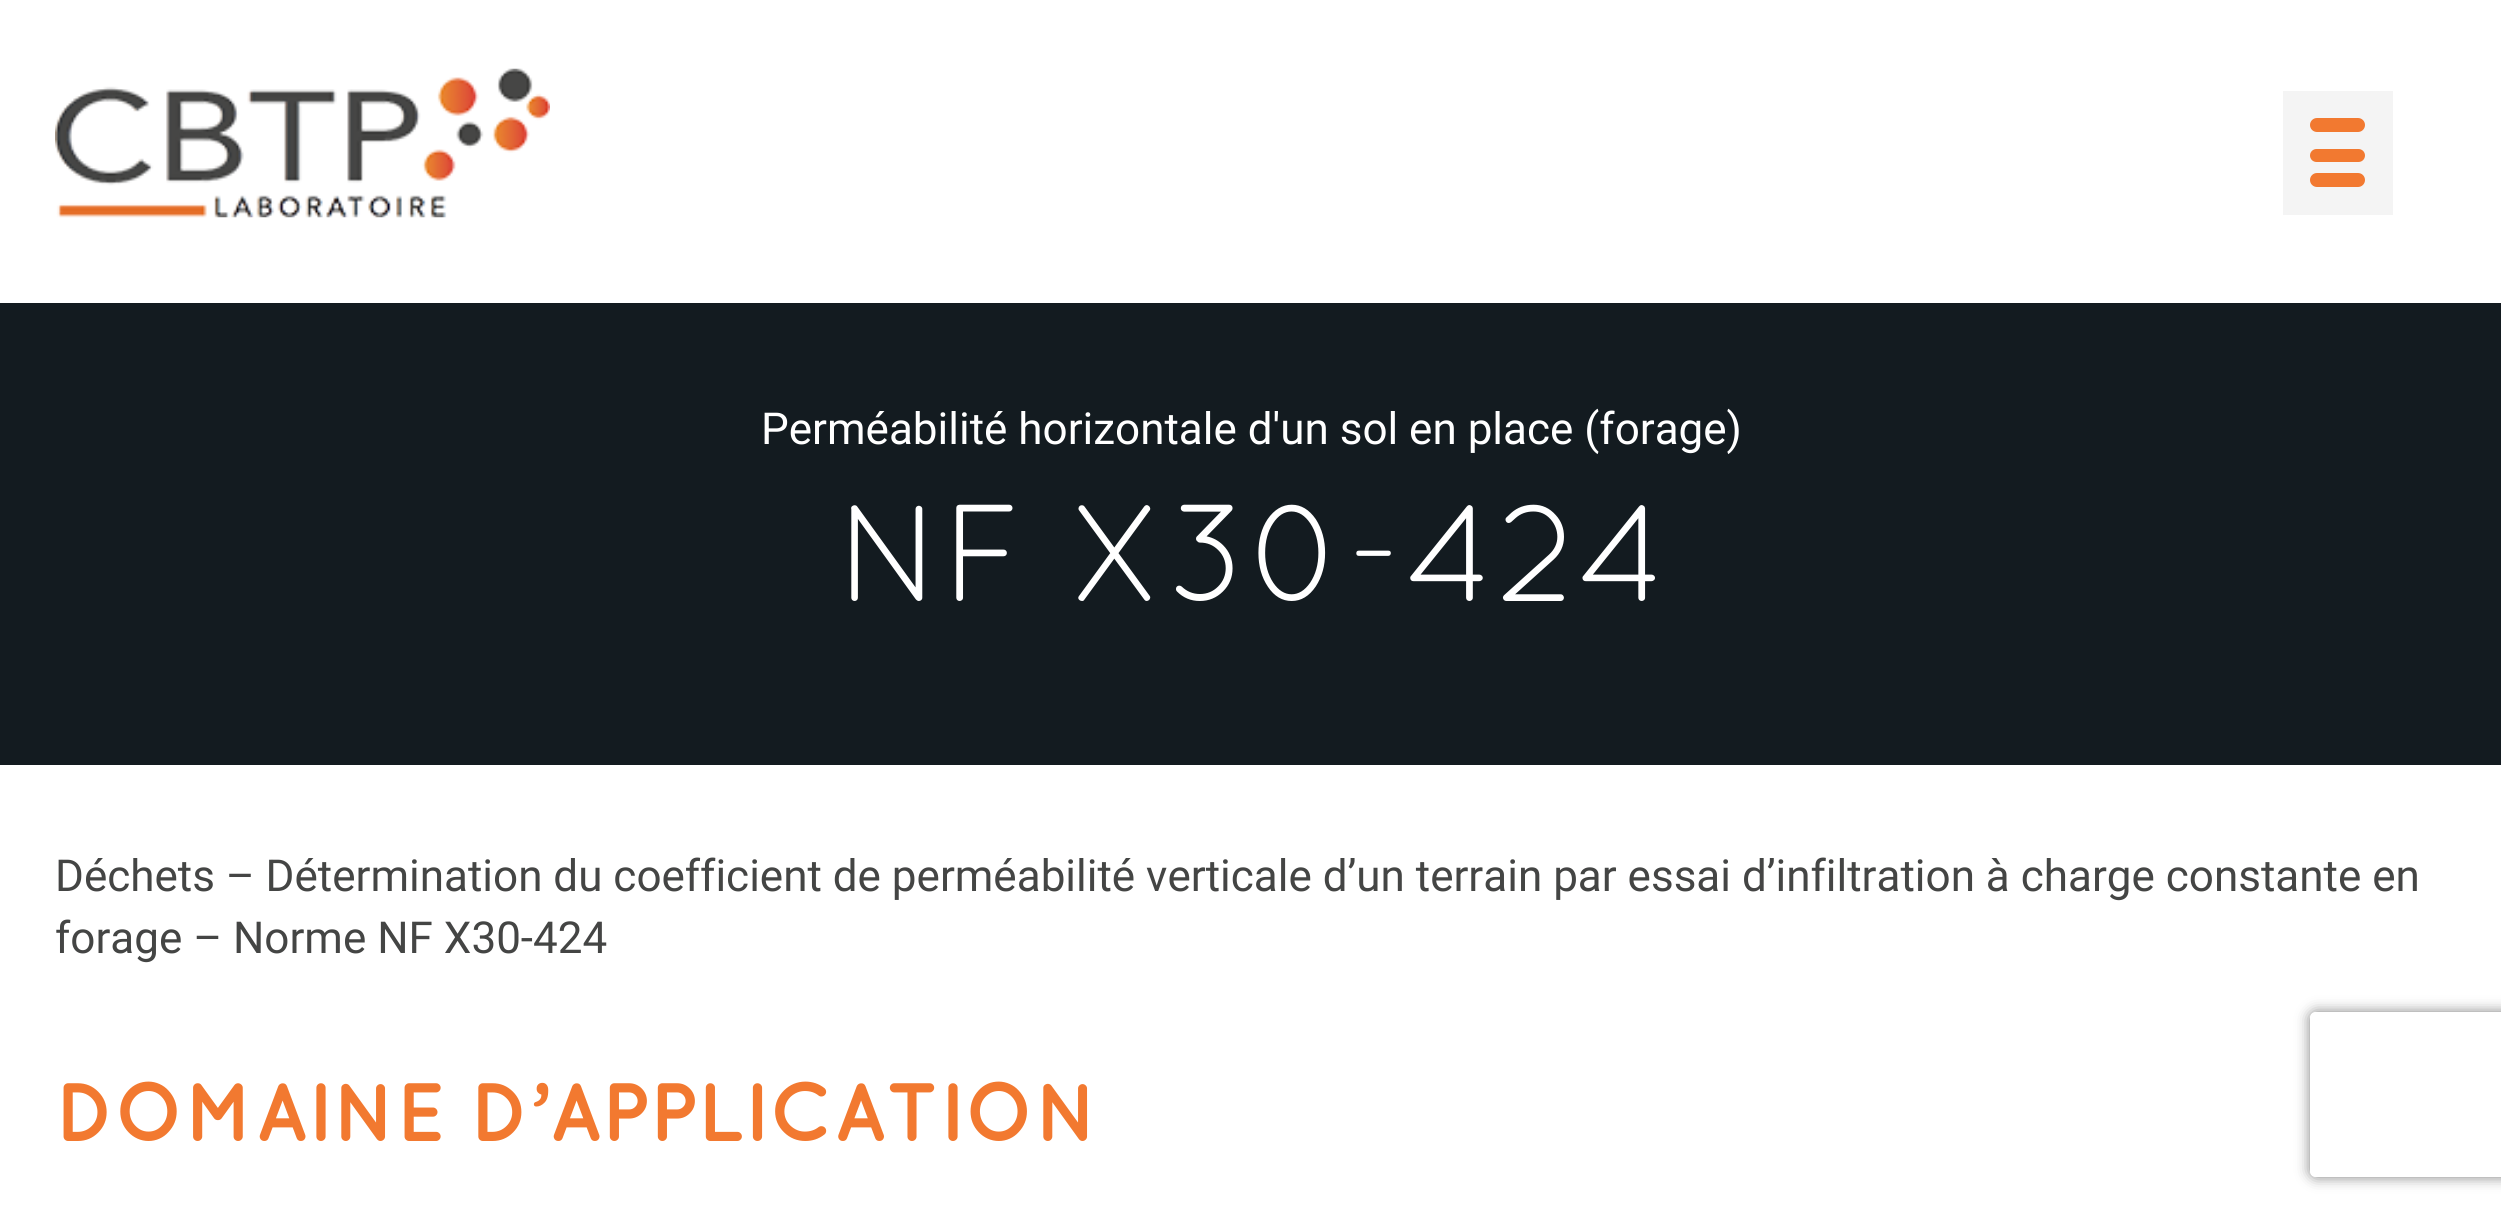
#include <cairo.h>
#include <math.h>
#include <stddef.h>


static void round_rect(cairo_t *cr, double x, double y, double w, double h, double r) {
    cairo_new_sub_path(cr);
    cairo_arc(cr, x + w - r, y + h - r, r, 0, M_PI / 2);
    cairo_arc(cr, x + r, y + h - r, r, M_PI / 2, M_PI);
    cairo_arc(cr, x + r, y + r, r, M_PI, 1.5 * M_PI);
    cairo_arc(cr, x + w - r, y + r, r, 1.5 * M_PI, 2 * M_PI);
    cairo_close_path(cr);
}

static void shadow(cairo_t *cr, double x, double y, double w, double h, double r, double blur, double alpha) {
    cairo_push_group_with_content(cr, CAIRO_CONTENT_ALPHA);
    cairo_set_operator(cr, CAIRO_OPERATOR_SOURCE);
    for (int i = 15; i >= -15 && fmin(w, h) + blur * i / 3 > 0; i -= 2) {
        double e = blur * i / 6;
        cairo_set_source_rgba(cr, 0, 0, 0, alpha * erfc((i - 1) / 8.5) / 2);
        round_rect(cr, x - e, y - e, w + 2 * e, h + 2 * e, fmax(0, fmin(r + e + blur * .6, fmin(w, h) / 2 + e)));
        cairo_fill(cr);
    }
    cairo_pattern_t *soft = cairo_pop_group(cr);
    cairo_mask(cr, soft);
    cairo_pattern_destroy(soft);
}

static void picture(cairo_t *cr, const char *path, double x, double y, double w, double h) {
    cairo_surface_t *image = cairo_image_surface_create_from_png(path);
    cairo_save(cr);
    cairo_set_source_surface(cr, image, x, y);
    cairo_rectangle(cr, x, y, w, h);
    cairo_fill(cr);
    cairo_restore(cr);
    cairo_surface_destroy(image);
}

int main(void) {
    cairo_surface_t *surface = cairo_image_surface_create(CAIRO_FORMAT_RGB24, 2501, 1215);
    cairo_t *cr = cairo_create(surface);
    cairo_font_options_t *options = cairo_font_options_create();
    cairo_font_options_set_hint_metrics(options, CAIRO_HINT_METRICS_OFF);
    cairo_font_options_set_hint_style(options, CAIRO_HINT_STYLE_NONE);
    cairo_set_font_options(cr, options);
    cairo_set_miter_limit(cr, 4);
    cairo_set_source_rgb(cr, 1, 1, 1);
    cairo_paint(cr);
    picture(cr, "img1.png", 55, 68, 495, 150);
    cairo_set_source_rgb(cr, 0.957, 0.957, 0.957);
    cairo_rectangle(cr, 2283, 91, 110, 124);
    cairo_fill(cr);
    cairo_set_source_rgb(cr, 0.949, 0.475, 0.188);
    round_rect(cr, 2310, 118, 55, 14, 7);
    cairo_fill(cr);
    round_rect(cr, 2310, 149, 55, 13, 6.5);
    cairo_fill(cr);
    round_rect(cr, 2310, 173, 55, 14, 7);
    cairo_fill(cr);
    cairo_set_source_rgb(cr, 0.075, 0.106, 0.125);
    cairo_rectangle(cr, 0, 303, 2501, 462);
    cairo_fill(cr);
    cairo_select_font_face(cr, "Roboto", CAIRO_FONT_SLANT_NORMAL, CAIRO_FONT_WEIGHT_NORMAL);
    cairo_set_font_size(cr, 44);
    cairo_set_source_rgb(cr, 1, 1, 1);
    cairo_move_to(cr, 761, 444);
    cairo_show_text(cr, "Perméabilité horizontale d'un sol en place (forage)");
    cairo_select_font_face(cr, "Quicksand", CAIRO_FONT_SLANT_NORMAL, CAIRO_FONT_WEIGHT_NORMAL);
    cairo_set_font_size(cr, 137.5);
    cairo_move_to(cr, 836, 601);
    cairo_show_text(cr, "NF X30-424");
    cairo_select_font_face(cr, "Roboto", CAIRO_FONT_SLANT_NORMAL, CAIRO_FONT_WEIGHT_NORMAL);
    cairo_set_font_size(cr, 44);
    cairo_set_source_rgb(cr, 0.267, 0.271, 0.267);
    cairo_move_to(cr, 55, 891);
    cairo_show_text(cr, "Déchets – Détermination du coefficient de perméabilité verticale d’un terrain par essai d’infiltration à charge constante en");
    cairo_move_to(cr, 55, 953);
    cairo_show_text(cr, "forage – Norme NF X30-424");
    cairo_select_font_face(cr, "Quicksand", CAIRO_FONT_SLANT_NORMAL, CAIRO_FONT_WEIGHT_BOLD);
    cairo_set_font_size(cr, 82.5);
    cairo_set_source_rgb(cr, 0.949, 0.475, 0.188);
    cairo_move_to(cr, 55, 1141);
    cairo_show_text(cr, "DOMAINE D’APPLICATION");
    cairo_save(cr);
    cairo_set_fill_rule(cr, CAIRO_FILL_RULE_EVEN_ODD);
    cairo_new_path(cr);
    cairo_move_to(cr, 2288, 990);
    cairo_line_to(cr, 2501, 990);
    cairo_line_to(cr, 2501, 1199);
    cairo_line_to(cr, 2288, 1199);
    cairo_close_path(cr);
    cairo_move_to(cr, 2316, 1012);
    cairo_line_to(cr, 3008, 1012);
    cairo_curve_to(cr, 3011.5, 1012, 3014, 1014.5, 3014, 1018);
    cairo_line_to(cr, 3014, 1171);
    cairo_curve_to(cr, 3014, 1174.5, 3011.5, 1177, 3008, 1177);
    cairo_line_to(cr, 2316, 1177);
    cairo_curve_to(cr, 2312.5, 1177, 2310, 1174.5, 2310, 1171);
    cairo_line_to(cr, 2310, 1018);
    cairo_curve_to(cr, 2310, 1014.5, 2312.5, 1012, 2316, 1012);
    cairo_close_path(cr);
    cairo_clip(cr);
    cairo_set_source_rgb(cr, 0.502, 0.502, 0.502);
    shadow(cr, 2310, 1012, 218, 165, 6, 7, 1);
    cairo_restore(cr);
    cairo_surface_write_to_png(surface, "page.png");
    cairo_font_options_destroy(options);
    cairo_destroy(cr);
    cairo_surface_destroy(surface);
    return 0;
}
